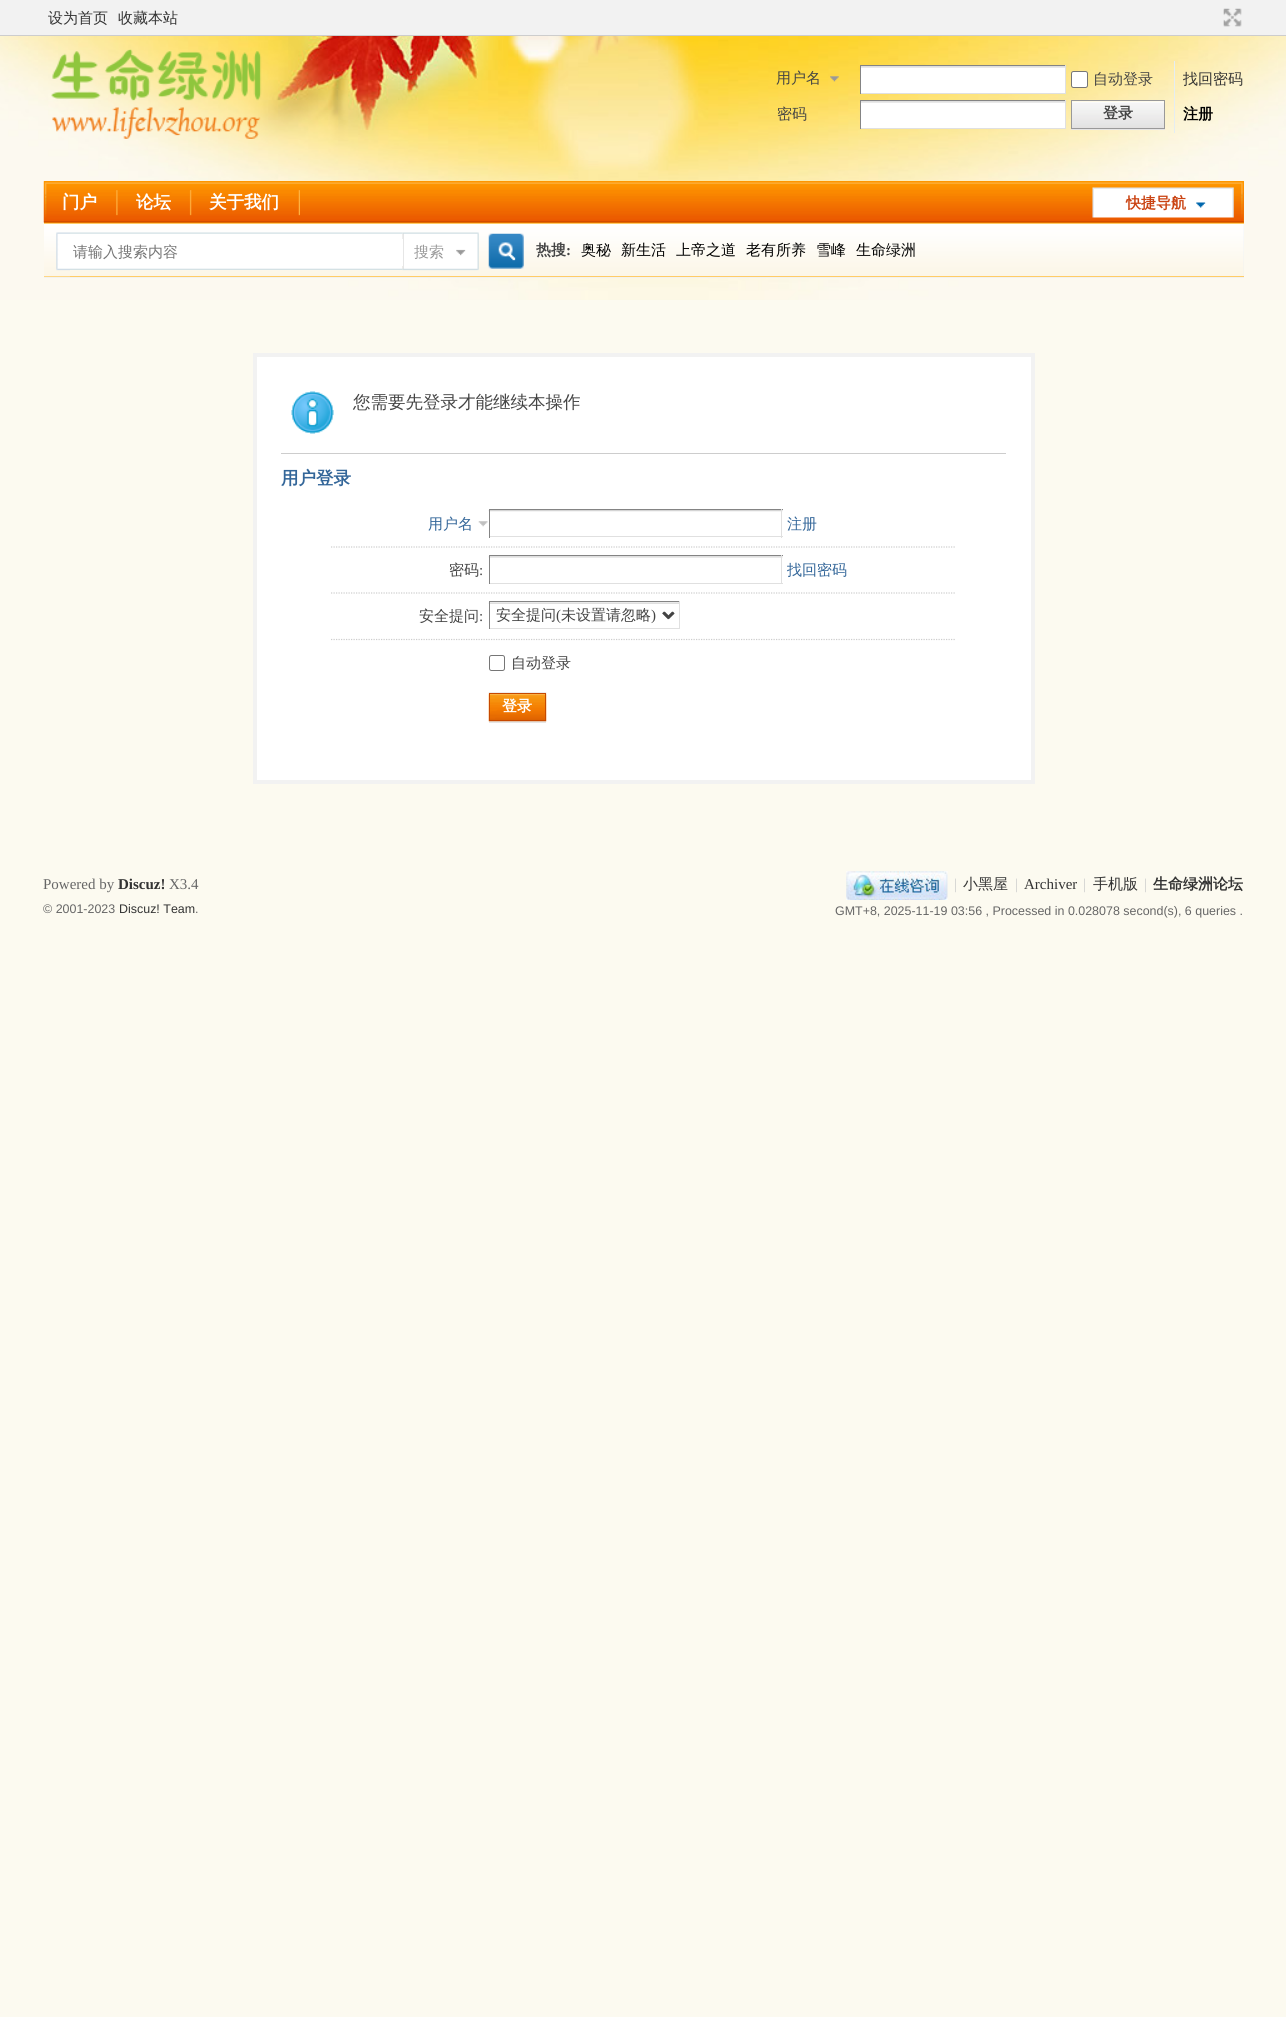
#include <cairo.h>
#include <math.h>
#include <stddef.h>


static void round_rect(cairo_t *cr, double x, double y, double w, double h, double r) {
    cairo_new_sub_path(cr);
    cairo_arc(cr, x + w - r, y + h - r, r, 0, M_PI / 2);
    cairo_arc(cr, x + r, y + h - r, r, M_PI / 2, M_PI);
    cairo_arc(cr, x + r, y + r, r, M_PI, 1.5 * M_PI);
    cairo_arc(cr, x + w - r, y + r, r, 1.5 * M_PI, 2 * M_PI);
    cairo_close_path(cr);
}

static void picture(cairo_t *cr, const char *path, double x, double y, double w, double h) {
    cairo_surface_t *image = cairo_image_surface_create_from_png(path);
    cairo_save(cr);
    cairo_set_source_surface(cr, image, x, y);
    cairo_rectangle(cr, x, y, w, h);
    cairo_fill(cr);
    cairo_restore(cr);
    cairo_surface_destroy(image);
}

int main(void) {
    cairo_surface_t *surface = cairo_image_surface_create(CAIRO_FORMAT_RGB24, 1286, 2017);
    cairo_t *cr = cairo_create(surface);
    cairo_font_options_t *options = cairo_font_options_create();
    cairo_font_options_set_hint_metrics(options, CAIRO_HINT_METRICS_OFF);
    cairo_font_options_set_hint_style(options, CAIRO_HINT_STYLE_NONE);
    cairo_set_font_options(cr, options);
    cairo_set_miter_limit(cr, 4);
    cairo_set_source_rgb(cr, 0.988, 0.98, 0.941);
    cairo_paint(cr);
    picture(cr, "img1.png", 0, 36, 1286, 264);
    cairo_set_source_rgb(cr, 0.949, 0.949, 0.949);
    cairo_rectangle(cr, 0, 0, 1286, 35);
    cairo_fill(cr);
    cairo_set_source_rgb(cr, 0.804, 0.804, 0.804);
    cairo_rectangle(cr, 0, 35, 1286, 1);
    cairo_fill(cr);
    cairo_select_font_face(cr, "WenQuanYi Zen Hei Medium", CAIRO_FONT_SLANT_NORMAL, CAIRO_FONT_WEIGHT_NORMAL);
    cairo_set_font_size(cr, 15);
    cairo_set_source_rgb(cr, 0.2, 0.2, 0.2);
    cairo_move_to(cr, 48, 23);
    cairo_show_text(cr, "设为首页");
    cairo_move_to(cr, 118, 23);
    cairo_show_text(cr, "收藏本站");
    picture(cr, "img2.png", 1223, 8, 19, 19);
    picture(cr, "img3.png", 51, 49, 211, 90);
    picture(cr, "img4.png", 830, 76, 9, 6);
    cairo_set_source_rgb(cr, 0.267, 0.267, 0.267);
    cairo_move_to(cr, 776, 83);
    cairo_show_text(cr, "用户名");
    cairo_set_source_rgb(cr, 1, 1, 1);
    cairo_rectangle(cr, 861, 66, 204, 27);
    cairo_fill(cr);
    picture(cr, "img5.png", 861, 66, 206, 2);
    cairo_set_source_rgb(cr, 0.518, 0.518, 0.518);
    cairo_rectangle(cr, 860, 65, 206, 1);
    cairo_fill(cr);
    cairo_set_source_rgb(cr, 0.878, 0.878, 0.878);
    cairo_rectangle(cr, 1065, 65, 1, 29);
    cairo_fill(cr);
    cairo_rectangle(cr, 860, 93, 206, 1);
    cairo_fill(cr);
    cairo_set_source_rgb(cr, 0.518, 0.518, 0.518);
    cairo_rectangle(cr, 860, 65, 1, 29);
    cairo_fill(cr);
    cairo_set_source_rgb(cr, 1, 1, 1);
    round_rect(cr, 1071.5, 71.5, 16, 16, 2);
    cairo_fill_preserve(cr);
    cairo_set_source_rgb(cr, 0.463, 0.463, 0.463);
    cairo_set_line_width(cr, 1);
    cairo_stroke(cr);
    cairo_set_source_rgb(cr, 0.267, 0.267, 0.267);
    cairo_move_to(cr, 1093, 84);
    cairo_show_text(cr, "自动登录");
    cairo_set_source_rgb(cr, 0.2, 0.2, 0.2);
    cairo_move_to(cr, 1183, 84);
    cairo_show_text(cr, "找回密码");
    cairo_set_source_rgb(cr, 0.267, 0.267, 0.267);
    cairo_move_to(cr, 777, 119);
    cairo_show_text(cr, "密码");
    cairo_set_source_rgb(cr, 1, 1, 1);
    cairo_rectangle(cr, 861, 101, 204, 27);
    cairo_fill(cr);
    picture(cr, "img6.png", 861, 101, 206, 2);
    cairo_set_source_rgb(cr, 0.518, 0.518, 0.518);
    cairo_rectangle(cr, 860, 100, 206, 1);
    cairo_fill(cr);
    cairo_set_source_rgb(cr, 0.878, 0.878, 0.878);
    cairo_rectangle(cr, 1065, 100, 1, 29);
    cairo_fill(cr);
    cairo_rectangle(cr, 860, 128, 206, 1);
    cairo_fill(cr);
    cairo_set_source_rgb(cr, 0.518, 0.518, 0.518);
    cairo_rectangle(cr, 860, 100, 1, 29);
    cairo_fill(cr);
    cairo_set_source_rgb(cr, 0.898, 0.929, 0.949);
    cairo_rectangle(cr, 1174, 61, 1, 72);
    cairo_fill(cr);
    cairo_set_source_rgb(cr, 0.898, 0.898, 0.898);
    cairo_new_path(cr);
    cairo_move_to(cr, 1071, 101);
    cairo_line_to(cr, 1071, 130);
    cairo_line_to(cr, 1165, 130);
    cairo_line_to(cr, 1165, 129);
    cairo_line_to(cr, 1071, 129);
    cairo_close_path(cr);
    cairo_fill(cr);
    picture(cr, "img7.png", 1072, 101, 92, 27);
    cairo_rectangle(cr, 1071.5, 100.5, 93, 28);
    cairo_set_source_rgb(cr, 0.6, 0.6, 0.6);
    cairo_stroke(cr);
    cairo_select_font_face(cr, "WenQuanYi Zen Hei", CAIRO_FONT_SLANT_NORMAL, CAIRO_FONT_WEIGHT_BOLD);
    cairo_set_source_rgb(cr, 0.267, 0.267, 0.267);
    cairo_move_to(cr, 1103, 118);
    cairo_show_text(cr, "登录");
    cairo_set_source_rgb(cr, 0, 0, 0);
    cairo_move_to(cr, 1183, 119);
    cairo_show_text(cr, "注册");
    cairo_set_source_rgb(cr, 0.996, 0.584, 0);
    cairo_rectangle(cr, 44, 181, 1200, 42);
    cairo_fill(cr);
    picture(cr, "img8.png", 43, 181, 1201, 42);
    picture(cr, "img9.png", 116, 190, 2, 26);
    cairo_set_font_size(cr, 17.5);
    cairo_set_source_rgb(cr, 1, 1, 1);
    cairo_move_to(cr, 62, 208);
    cairo_show_text(cr, "门户");
    picture(cr, "img10.png", 189, 190, 3, 26);
    cairo_move_to(cr, 136, 208);
    cairo_show_text(cr, "论坛");
    picture(cr, "img11.png", 298, 190, 2, 26);
    cairo_move_to(cr, 209, 208);
    cairo_show_text(cr, "关于我们");
    picture(cr, "img12.png", 1092, 187, 142, 31);
    cairo_set_font_size(cr, 15);
    cairo_set_source_rgb(cr, 0.792, 0.263, 0.071);
    cairo_move_to(cr, 1126, 208);
    cairo_show_text(cr, "快捷导航");
    cairo_set_source_rgb(cr, 0.91, 0.937, 0.961);
    cairo_rectangle(cr, 44, 224, 1200, 54);
    cairo_fill(cr);
    picture(cr, "img13.png", 44, 224, 1200, 54);
    cairo_set_source_rgb(cr, 1, 0.8, 0.4);
    cairo_rectangle(cr, 44, 223, 1200, 1);
    cairo_fill(cr);
    cairo_rectangle(cr, 44, 276, 1200, 1);
    cairo_fill(cr);
    picture(cr, "img14.png", 44, 223, 26, 54);
    picture(cr, "img15.png", 70, 232, 333, 38);
    picture(cr, "img16.png", 402, 232, 77, 39);
    cairo_set_source_rgb(cr, 1, 1, 1);
    cairo_rectangle(cr, 402, 239, 1, 27);
    cairo_fill(cr);
    cairo_select_font_face(cr, "WenQuanYi Zen Hei Medium", CAIRO_FONT_SLANT_NORMAL, CAIRO_FONT_WEIGHT_NORMAL);
    cairo_set_source_rgb(cr, 0.459, 0.459, 0.459);
    cairo_move_to(cr, 73, 257);
    cairo_show_text(cr, "请输入搜索内容");
    cairo_set_source_rgb(cr, 0.6, 0.6, 0.6);
    cairo_move_to(cr, 414, 257);
    cairo_show_text(cr, "搜索");
    picture(cr, "img17.png", 488, 233, 36, 36);
    cairo_select_font_face(cr, "WenQuanYi Zen Hei", CAIRO_FONT_SLANT_NORMAL, CAIRO_FONT_WEIGHT_BOLD);
    cairo_set_source_rgb(cr, 0.267, 0.267, 0.267);
    cairo_move_to(cr, 536, 255);
    cairo_show_text(cr, "热搜");
    cairo_select_font_face(cr, "Liberation Serif", CAIRO_FONT_SLANT_NORMAL, CAIRO_FONT_WEIGHT_BOLD);
    cairo_move_to(cr, 566, 255);
    cairo_show_text(cr, ":");
    cairo_select_font_face(cr, "WenQuanYi Zen Hei Medium", CAIRO_FONT_SLANT_NORMAL, CAIRO_FONT_WEIGHT_NORMAL);
    cairo_set_source_rgb(cr, 0, 0, 0);
    cairo_move_to(cr, 581, 255);
    cairo_show_text(cr, "奥秘");
    cairo_move_to(cr, 621, 255);
    cairo_show_text(cr, "新生活");
    cairo_move_to(cr, 676, 255);
    cairo_show_text(cr, "上帝之道");
    cairo_move_to(cr, 746, 255);
    cairo_show_text(cr, "老有所养");
    cairo_move_to(cr, 816, 255);
    cairo_show_text(cr, "雪峰");
    cairo_move_to(cr, 856, 255);
    cairo_show_text(cr, "生命绿洲");
    cairo_set_source_rgb(cr, 1, 1, 1);
    cairo_rectangle(cr, 255, 355, 778, 427);
    cairo_fill_preserve(cr);
    cairo_set_source_rgb(cr, 0.949, 0.949, 0.949);
    cairo_set_line_width(cr, 4);
    cairo_stroke(cr);
    picture(cr, "img18.png", 291, 391, 43, 43);
    cairo_set_font_size(cr, 17.5);
    cairo_set_source_rgb(cr, 0.267, 0.267, 0.267);
    cairo_move_to(cr, 353, 408);
    cairo_show_text(cr, "您需要先登录才能继续本操作");
    cairo_set_source_rgb(cr, 0.804, 0.804, 0.804);
    cairo_rectangle(cr, 281, 453, 725, 1);
    cairo_fill(cr);
    cairo_select_font_face(cr, "WenQuanYi Zen Hei", CAIRO_FONT_SLANT_NORMAL, CAIRO_FONT_WEIGHT_BOLD);
    cairo_set_source_rgb(cr, 0.2, 0.4, 0.6);
    cairo_move_to(cr, 281, 484);
    cairo_show_text(cr, "用户登录");
    cairo_new_path(cr);
    cairo_move_to(cr, 331, 547);
    cairo_line_to(cr, 956, 547);
    cairo_set_source_rgb(cr, 0.804, 0.804, 0.804);
    cairo_set_line_width(cr, 1.2);
    cairo_set_dash(cr, (double[]){1.25, 1.25}, 2, 0);
    cairo_stroke(cr);
    cairo_select_font_face(cr, "WenQuanYi Zen Hei Medium", CAIRO_FONT_SLANT_NORMAL, CAIRO_FONT_WEIGHT_NORMAL);
    cairo_set_font_size(cr, 15);
    cairo_set_source_rgb(cr, 0.2, 0.4, 0.6);
    cairo_move_to(cr, 428, 529);
    cairo_show_text(cr, "用户名");
    picture(cr, "img19.png", 478, 521, 10, 6);
    picture(cr, "img20.png", 488, 510, 295, 2);
    cairo_set_source_rgb(cr, 0.518, 0.518, 0.518);
    cairo_rectangle(cr, 489, 509, 294, 1);
    cairo_fill(cr);
    cairo_set_source_rgb(cr, 0.878, 0.878, 0.878);
    cairo_rectangle(cr, 781, 509, 1, 29);
    cairo_fill(cr);
    cairo_rectangle(cr, 489, 536, 294, 1);
    cairo_fill(cr);
    cairo_set_source_rgb(cr, 0.518, 0.518, 0.518);
    cairo_rectangle(cr, 489, 509, 1, 29);
    cairo_fill(cr);
    cairo_set_source_rgb(cr, 0.2, 0.4, 0.6);
    cairo_move_to(cr, 787, 529);
    cairo_show_text(cr, "注册");
    cairo_new_path(cr);
    cairo_move_to(cr, 331, 593);
    cairo_line_to(cr, 956, 593);
    cairo_set_source_rgb(cr, 0.804, 0.804, 0.804);
    cairo_stroke(cr);
    cairo_set_source_rgb(cr, 0.267, 0.267, 0.267);
    cairo_move_to(cr, 449, 575);
    cairo_show_text(cr, "密码");
    cairo_select_font_face(cr, "Liberation Serif", CAIRO_FONT_SLANT_NORMAL, CAIRO_FONT_WEIGHT_NORMAL);
    cairo_move_to(cr, 479, 575);
    cairo_show_text(cr, ":");
    picture(cr, "img21.png", 488, 556, 295, 2);
    cairo_set_source_rgb(cr, 0.518, 0.518, 0.518);
    cairo_rectangle(cr, 489, 555, 294, 1);
    cairo_fill(cr);
    cairo_set_source_rgb(cr, 0.878, 0.878, 0.878);
    cairo_rectangle(cr, 781, 555, 1, 29);
    cairo_fill(cr);
    cairo_rectangle(cr, 489, 583, 294, 1);
    cairo_fill(cr);
    cairo_set_source_rgb(cr, 0.518, 0.518, 0.518);
    cairo_rectangle(cr, 489, 555, 1, 29);
    cairo_fill(cr);
    cairo_select_font_face(cr, "WenQuanYi Zen Hei Medium", CAIRO_FONT_SLANT_NORMAL, CAIRO_FONT_WEIGHT_NORMAL);
    cairo_set_source_rgb(cr, 0.2, 0.4, 0.6);
    cairo_move_to(cr, 787, 575);
    cairo_show_text(cr, "找回密码");
    cairo_new_path(cr);
    cairo_move_to(cr, 331, 639.5);
    cairo_line_to(cr, 956, 639.5);
    cairo_set_source_rgb(cr, 0.804, 0.804, 0.804);
    cairo_stroke(cr);
    cairo_set_source_rgb(cr, 0.267, 0.267, 0.267);
    cairo_move_to(cr, 419, 621);
    cairo_show_text(cr, "安全提问");
    cairo_select_font_face(cr, "Liberation Serif", CAIRO_FONT_SLANT_NORMAL, CAIRO_FONT_WEIGHT_NORMAL);
    cairo_move_to(cr, 479, 621);
    cairo_show_text(cr, ":");
    picture(cr, "img22.png", 488, 602, 191, 18);
    cairo_set_source_rgb(cr, 0.518, 0.518, 0.518);
    cairo_rectangle(cr, 489, 601, 191, 1);
    cairo_fill(cr);
    cairo_set_source_rgb(cr, 0.878, 0.878, 0.878);
    cairo_rectangle(cr, 679, 601, 1, 28);
    cairo_fill(cr);
    cairo_rectangle(cr, 489, 628, 191, 1);
    cairo_fill(cr);
    cairo_set_source_rgb(cr, 0.518, 0.518, 0.518);
    cairo_rectangle(cr, 489, 601, 1, 28);
    cairo_fill(cr);
    cairo_new_path(cr);
    cairo_move_to(cr, 663, 612.5);
    cairo_line_to(cr, 668, 617.5);
    cairo_line_to(cr, 673, 612.5);
    cairo_set_source_rgb(cr, 0.267, 0.267, 0.267);
    cairo_set_line_width(cr, 2.5);
    cairo_set_dash(cr, NULL, 0, 0);
    cairo_stroke(cr);
    cairo_select_font_face(cr, "WenQuanYi Zen Hei Medium", CAIRO_FONT_SLANT_NORMAL, CAIRO_FONT_WEIGHT_NORMAL);
    cairo_move_to(cr, 496, 620);
    cairo_show_text(cr, "安全提问");
    cairo_select_font_face(cr, "Liberation Serif", CAIRO_FONT_SLANT_NORMAL, CAIRO_FONT_WEIGHT_NORMAL);
    cairo_move_to(cr, 556, 620);
    cairo_show_text(cr, "(");
    cairo_select_font_face(cr, "WenQuanYi Zen Hei Medium", CAIRO_FONT_SLANT_NORMAL, CAIRO_FONT_WEIGHT_NORMAL);
    cairo_move_to(cr, 561, 620);
    cairo_show_text(cr, "未设置请忽略");
    cairo_select_font_face(cr, "Liberation Serif", CAIRO_FONT_SLANT_NORMAL, CAIRO_FONT_WEIGHT_NORMAL);
    cairo_move_to(cr, 651, 620);
    cairo_show_text(cr, ")");
    round_rect(cr, 489.5, 655.5, 15, 15, 2);
    cairo_set_source_rgb(cr, 0.463, 0.463, 0.463);
    cairo_set_line_width(cr, 1);
    cairo_stroke(cr);
    cairo_select_font_face(cr, "WenQuanYi Zen Hei Medium", CAIRO_FONT_SLANT_NORMAL, CAIRO_FONT_WEIGHT_NORMAL);
    cairo_set_source_rgb(cr, 0.267, 0.267, 0.267);
    cairo_move_to(cr, 511, 668);
    cairo_show_text(cr, "自动登录");
    cairo_set_source_rgb(cr, 0.898, 0.898, 0.898);
    cairo_rectangle(cr, 489, 721, 57, 2);
    cairo_fill(cr);
    picture(cr, "img23.png", 488, 692, 59, 30);
    cairo_rectangle(cr, 489.5, 693.5, 56, 27);
    cairo_set_source_rgb(cr, 0.78, 0.286, 0);
    cairo_stroke(cr);
    cairo_select_font_face(cr, "WenQuanYi Zen Hei", CAIRO_FONT_SLANT_NORMAL, CAIRO_FONT_WEIGHT_BOLD);
    cairo_set_source_rgb(cr, 1, 1, 1);
    cairo_move_to(cr, 502, 711);
    cairo_show_text(cr, "登录");
    cairo_select_font_face(cr, "Liberation Serif", CAIRO_FONT_SLANT_NORMAL, CAIRO_FONT_WEIGHT_NORMAL);
    cairo_set_source_rgb(cr, 0.4, 0.4, 0.4);
    cairo_move_to(cr, 43, 889);
    cairo_show_text(cr, "Powered by");
    cairo_select_font_face(cr, "Liberation Serif", CAIRO_FONT_SLANT_NORMAL, CAIRO_FONT_WEIGHT_BOLD);
    cairo_set_source_rgb(cr, 0.2, 0.2, 0.2);
    cairo_move_to(cr, 118, 889);
    cairo_show_text(cr, "Discuz!");
    cairo_select_font_face(cr, "Liberation Serif", CAIRO_FONT_SLANT_NORMAL, CAIRO_FONT_WEIGHT_NORMAL);
    cairo_set_source_rgb(cr, 0.4, 0.4, 0.4);
    cairo_move_to(cr, 169, 889);
    cairo_show_text(cr, "X3.4");
    cairo_select_font_face(cr, "Liberation Sans", CAIRO_FONT_SLANT_NORMAL, CAIRO_FONT_WEIGHT_NORMAL);
    cairo_set_font_size(cr, 12.45);
    cairo_move_to(cr, 43, 913);
    cairo_show_text(cr, "© 2001-2023");
    cairo_set_source_rgb(cr, 0.2, 0.2, 0.2);
    cairo_move_to(cr, 119, 913);
    cairo_show_text(cr, "Discuz! Team");
    cairo_set_source_rgb(cr, 0.4, 0.4, 0.4);
    cairo_move_to(cr, 195, 913);
    cairo_show_text(cr, ".");
    picture(cr, "img24.png", 846, 871, 102, 29);
    cairo_select_font_face(cr, "Liberation Serif", CAIRO_FONT_SLANT_NORMAL, CAIRO_FONT_WEIGHT_NORMAL);
    cairo_set_font_size(cr, 15);
    cairo_set_source_rgb(cr, 0.8, 0.8, 0.8);
    cairo_move_to(cr, 954, 889);
    cairo_show_text(cr, "|");
    cairo_select_font_face(cr, "WenQuanYi Zen Hei Medium", CAIRO_FONT_SLANT_NORMAL, CAIRO_FONT_WEIGHT_NORMAL);
    cairo_set_source_rgb(cr, 0.2, 0.2, 0.2);
    cairo_move_to(cr, 963, 889);
    cairo_show_text(cr, "小黑屋");
    cairo_select_font_face(cr, "Liberation Serif", CAIRO_FONT_SLANT_NORMAL, CAIRO_FONT_WEIGHT_NORMAL);
    cairo_set_source_rgb(cr, 0.8, 0.8, 0.8);
    cairo_move_to(cr, 1015, 889);
    cairo_show_text(cr, "|");
    cairo_set_source_rgb(cr, 0.2, 0.2, 0.2);
    cairo_move_to(cr, 1024, 889);
    cairo_show_text(cr, "Archiver");
    cairo_set_source_rgb(cr, 0.8, 0.8, 0.8);
    cairo_move_to(cr, 1083, 889);
    cairo_show_text(cr, "|");
    cairo_select_font_face(cr, "WenQuanYi Zen Hei Medium", CAIRO_FONT_SLANT_NORMAL, CAIRO_FONT_WEIGHT_NORMAL);
    cairo_set_source_rgb(cr, 0.2, 0.2, 0.2);
    cairo_move_to(cr, 1093, 889);
    cairo_show_text(cr, "手机版");
    cairo_select_font_face(cr, "Liberation Serif", CAIRO_FONT_SLANT_NORMAL, CAIRO_FONT_WEIGHT_NORMAL);
    cairo_set_source_rgb(cr, 0.8, 0.8, 0.8);
    cairo_move_to(cr, 1144, 889);
    cairo_show_text(cr, "|");
    cairo_select_font_face(cr, "WenQuanYi Zen Hei", CAIRO_FONT_SLANT_NORMAL, CAIRO_FONT_WEIGHT_BOLD);
    cairo_set_source_rgb(cr, 0.2, 0.2, 0.2);
    cairo_move_to(cr, 1153, 889);
    cairo_show_text(cr, "生命绿洲论坛");
    cairo_select_font_face(cr, "Liberation Sans", CAIRO_FONT_SLANT_NORMAL, CAIRO_FONT_WEIGHT_NORMAL);
    cairo_set_font_size(cr, 12.45);
    cairo_set_source_rgb(cr, 0.4, 0.4, 0.4);
    cairo_move_to(cr, 835, 915);
    cairo_show_text(cr, "GMT+8, 2025-11-19 03:56 , Processed in 0.028078 second(s), 6 queries .");
    cairo_surface_write_to_png(surface, "page.png");
    cairo_font_options_destroy(options);
    cairo_destroy(cr);
    cairo_surface_destroy(surface);
    return 0;
}
